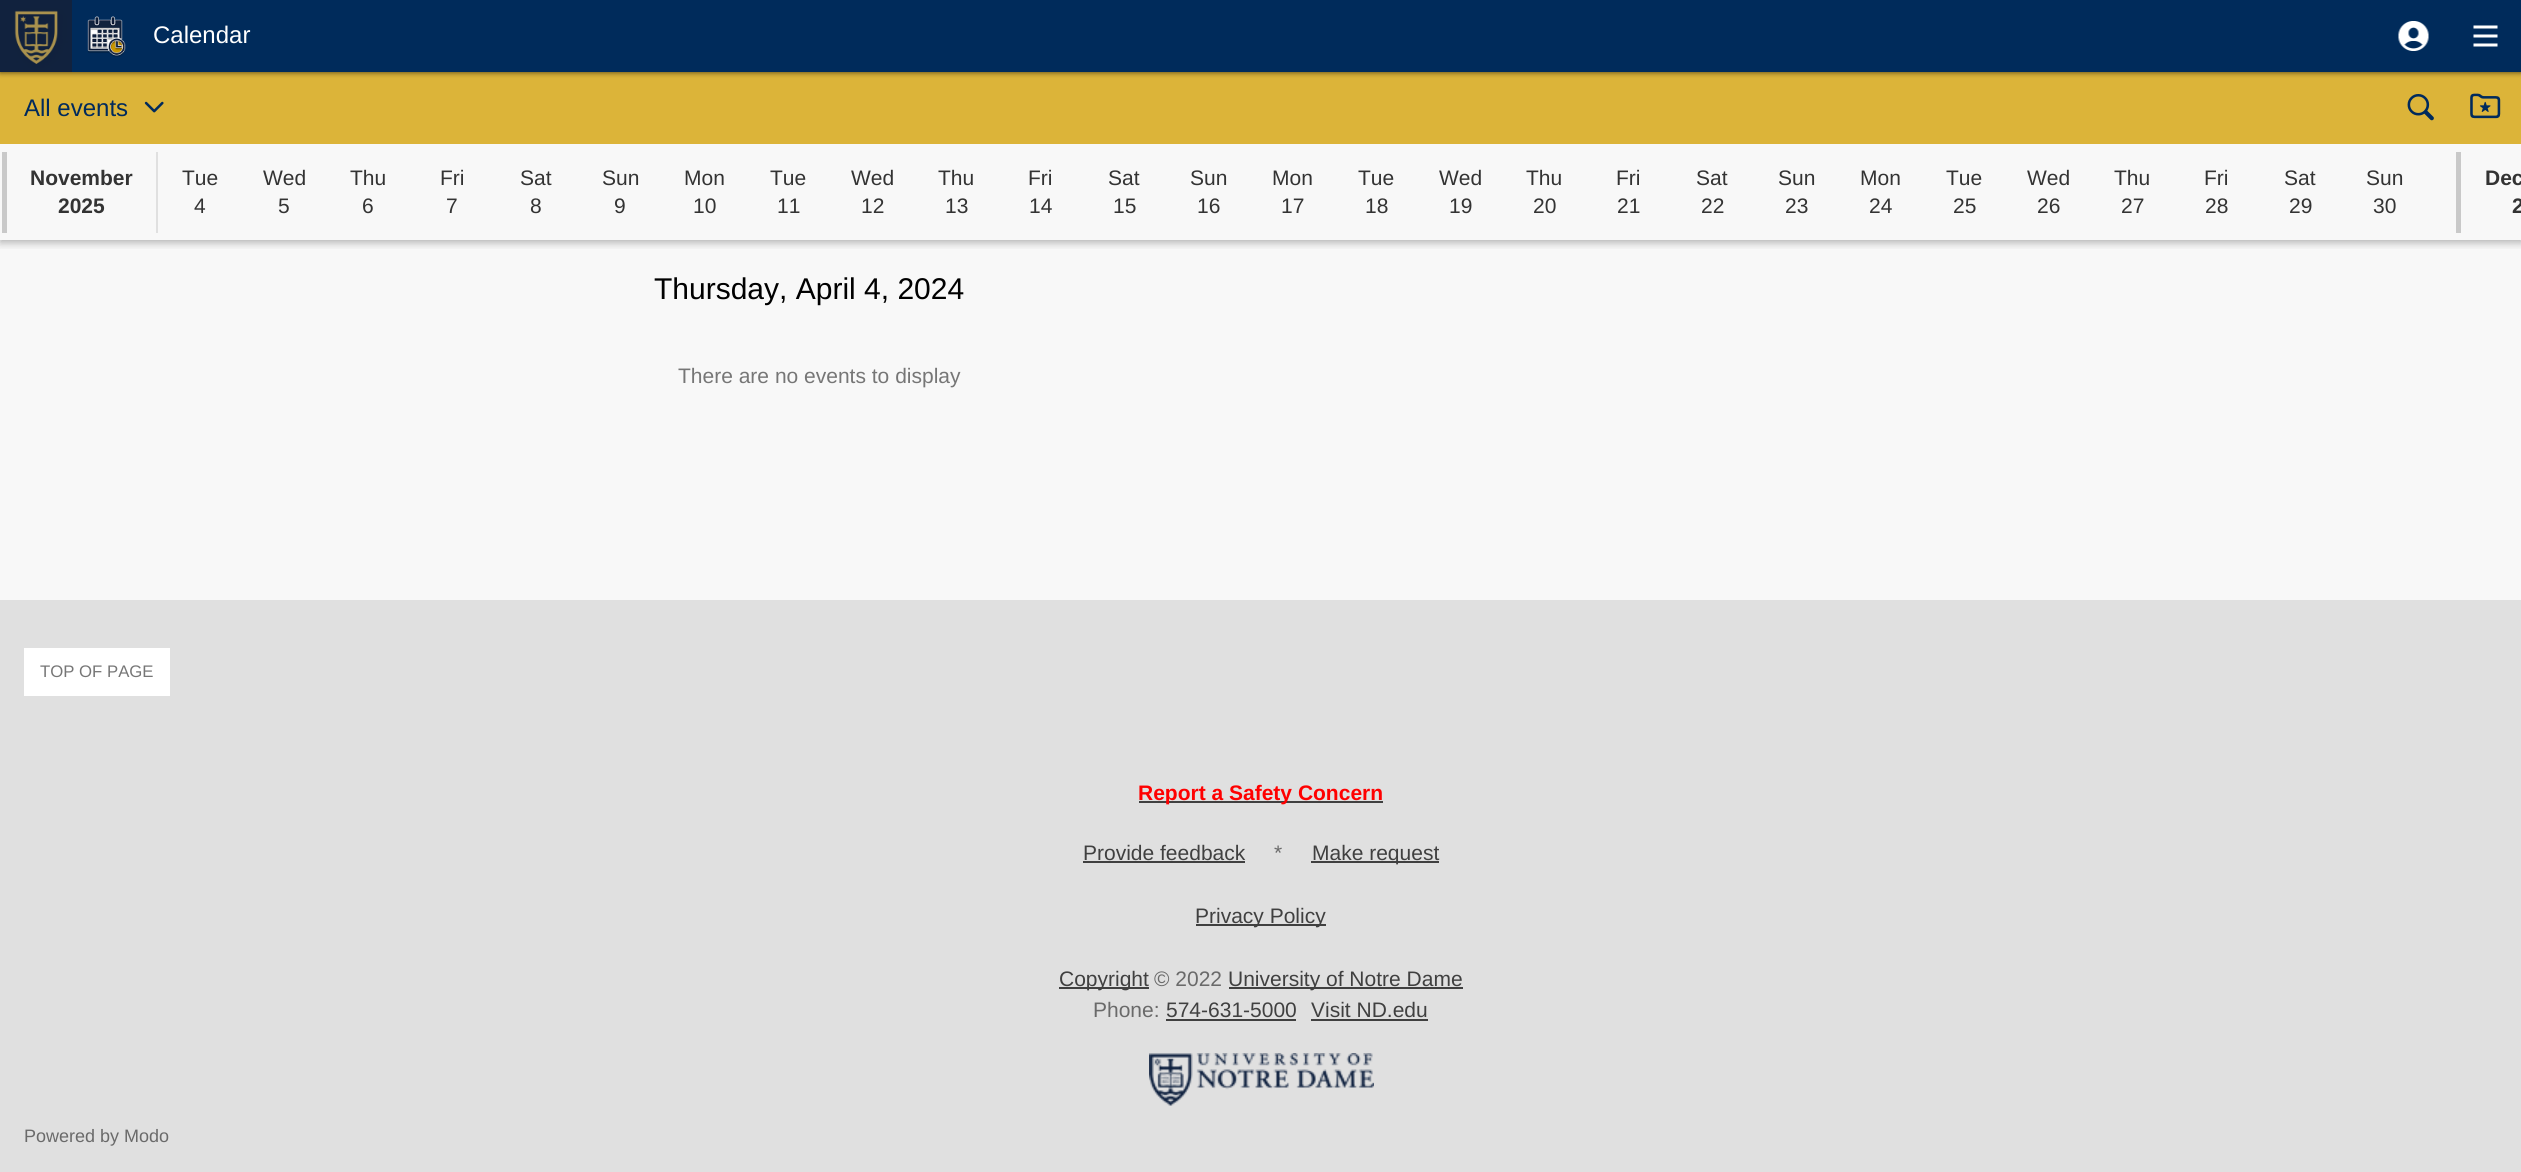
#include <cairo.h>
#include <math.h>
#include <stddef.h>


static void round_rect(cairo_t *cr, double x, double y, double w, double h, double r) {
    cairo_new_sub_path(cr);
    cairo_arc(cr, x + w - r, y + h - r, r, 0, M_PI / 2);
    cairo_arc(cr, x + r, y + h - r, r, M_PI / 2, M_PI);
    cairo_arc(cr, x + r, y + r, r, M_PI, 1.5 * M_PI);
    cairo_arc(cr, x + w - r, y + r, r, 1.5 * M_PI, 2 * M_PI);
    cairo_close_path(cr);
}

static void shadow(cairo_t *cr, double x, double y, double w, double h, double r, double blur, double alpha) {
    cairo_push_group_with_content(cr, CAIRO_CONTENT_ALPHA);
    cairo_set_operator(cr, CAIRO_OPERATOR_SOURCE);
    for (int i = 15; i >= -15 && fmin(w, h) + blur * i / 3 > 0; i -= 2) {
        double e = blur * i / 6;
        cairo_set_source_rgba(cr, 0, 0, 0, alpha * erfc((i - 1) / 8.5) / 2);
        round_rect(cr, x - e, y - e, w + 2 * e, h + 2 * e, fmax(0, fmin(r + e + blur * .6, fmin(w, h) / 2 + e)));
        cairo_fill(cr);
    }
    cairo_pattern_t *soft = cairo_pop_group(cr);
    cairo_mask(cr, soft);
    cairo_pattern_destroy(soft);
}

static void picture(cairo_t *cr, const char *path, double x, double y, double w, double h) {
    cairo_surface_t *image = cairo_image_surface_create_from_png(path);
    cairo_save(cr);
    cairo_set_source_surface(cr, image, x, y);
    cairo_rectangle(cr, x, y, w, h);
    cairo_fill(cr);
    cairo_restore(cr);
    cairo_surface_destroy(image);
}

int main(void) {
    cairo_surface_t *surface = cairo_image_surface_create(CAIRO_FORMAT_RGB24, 2521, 1172);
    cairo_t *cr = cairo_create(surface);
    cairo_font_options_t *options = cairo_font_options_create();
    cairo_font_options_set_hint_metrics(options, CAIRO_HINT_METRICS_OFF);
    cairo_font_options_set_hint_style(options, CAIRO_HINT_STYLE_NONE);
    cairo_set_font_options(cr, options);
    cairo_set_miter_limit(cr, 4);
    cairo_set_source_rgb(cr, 0.878, 0.878, 0.878);
    cairo_paint(cr);
    cairo_set_source_rgb(cr, 0.969, 0.969, 0.969);
    cairo_rectangle(cr, 0, 144, 2521, 456);
    cairo_fill(cr);
    cairo_save(cr);
    cairo_rectangle(cr, 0, 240, 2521, 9);
    cairo_clip(cr);
    cairo_set_source_rgb(cr, 0, 0, 0);
    shadow(cr, 0, 147, 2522, 96, 0, 4, 0.27);
    cairo_restore(cr);
    cairo_set_source_rgb(cr, 0.863, 0.706, 0.224);
    cairo_rectangle(cr, 0, 72, 2521, 72);
    cairo_fill(cr);
    cairo_set_source_rgb(cr, 0, 0, 0);
    shadow(cr, 0, 0, 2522, 72, 0, 3, 0.7);
    picture(cr, "img1.png", 0, 0, 72, 72);
    cairo_set_source_rgb(cr, 0, 0.169, 0.357);
    cairo_rectangle(cr, 72, 0, 2449, 72);
    cairo_fill(cr);
    picture(cr, "img2.png", 87, 16, 39, 41);
    cairo_select_font_face(cr, "Liberation Sans", CAIRO_FONT_SLANT_NORMAL, CAIRO_FONT_WEIGHT_NORMAL);
    cairo_set_font_size(cr, 24);
    cairo_set_source_rgb(cr, 1, 1, 1);
    cairo_move_to(cr, 153, 43);
    cairo_show_text(cr, "Calendar");
    picture(cr, "img3.png", 2398, 21, 31, 30);
    picture(cr, "img4.png", 2473, 25, 25, 22);
    cairo_set_source_rgb(cr, 0, 0.165, 0.361);
    cairo_move_to(cr, 24, 116);
    cairo_show_text(cr, "All events");
    picture(cr, "img5.png", 144, 101, 20, 12);
    picture(cr, "img6.png", 2407, 94, 27, 27);
    picture(cr, "img7.png", 2470, 93, 31, 26);
    cairo_set_source_rgb(cr, 0.878, 0.878, 0.878);
    cairo_rectangle(cr, 156, 152, 2, 81);
    cairo_fill(cr);
    cairo_set_source_rgb(cr, 0.788, 0.788, 0.788);
    cairo_rectangle(cr, 2, 152, 5, 81);
    cairo_fill(cr);
    cairo_select_font_face(cr, "Liberation Sans", CAIRO_FONT_SLANT_NORMAL, CAIRO_FONT_WEIGHT_BOLD);
    cairo_set_font_size(cr, 21);
    cairo_set_source_rgb(cr, 0.2, 0.2, 0.2);
    cairo_move_to(cr, 30, 185);
    cairo_show_text(cr, "November");
    cairo_move_to(cr, 58, 213);
    cairo_show_text(cr, "2025");
    cairo_select_font_face(cr, "Liberation Sans", CAIRO_FONT_SLANT_NORMAL, CAIRO_FONT_WEIGHT_NORMAL);
    cairo_move_to(cr, 182, 185);
    cairo_show_text(cr, "Tue");
    cairo_move_to(cr, 194, 213);
    cairo_show_text(cr, "4");
    cairo_move_to(cr, 263, 185);
    cairo_show_text(cr, "Wed");
    cairo_move_to(cr, 278, 213);
    cairo_show_text(cr, "5");
    cairo_move_to(cr, 350, 185);
    cairo_show_text(cr, "Thu");
    cairo_move_to(cr, 362, 213);
    cairo_show_text(cr, "6");
    cairo_move_to(cr, 440, 185);
    cairo_show_text(cr, "Fri");
    cairo_move_to(cr, 446, 213);
    cairo_show_text(cr, "7");
    cairo_move_to(cr, 520, 185);
    cairo_show_text(cr, "Sat");
    cairo_move_to(cr, 530, 213);
    cairo_show_text(cr, "8");
    cairo_move_to(cr, 602, 185);
    cairo_show_text(cr, "Sun");
    cairo_move_to(cr, 614, 213);
    cairo_show_text(cr, "9");
    cairo_move_to(cr, 684, 185);
    cairo_show_text(cr, "Mon");
    cairo_move_to(cr, 693, 213);
    cairo_show_text(cr, "10");
    cairo_move_to(cr, 770, 185);
    cairo_show_text(cr, "Tue");
    cairo_move_to(cr, 777, 213);
    cairo_show_text(cr, "11");
    cairo_move_to(cr, 851, 185);
    cairo_show_text(cr, "Wed");
    cairo_move_to(cr, 861, 213);
    cairo_show_text(cr, "12");
    cairo_move_to(cr, 938, 185);
    cairo_show_text(cr, "Thu");
    cairo_move_to(cr, 945, 213);
    cairo_show_text(cr, "13");
    cairo_move_to(cr, 1028, 185);
    cairo_show_text(cr, "Fri");
    cairo_move_to(cr, 1029, 213);
    cairo_show_text(cr, "14");
    cairo_move_to(cr, 1108, 185);
    cairo_show_text(cr, "Sat");
    cairo_move_to(cr, 1113, 213);
    cairo_show_text(cr, "15");
    cairo_move_to(cr, 1190, 185);
    cairo_show_text(cr, "Sun");
    cairo_move_to(cr, 1197, 213);
    cairo_show_text(cr, "16");
    cairo_move_to(cr, 1272, 185);
    cairo_show_text(cr, "Mon");
    cairo_move_to(cr, 1281, 213);
    cairo_show_text(cr, "17");
    cairo_move_to(cr, 1358, 185);
    cairo_show_text(cr, "Tue");
    cairo_move_to(cr, 1365, 213);
    cairo_show_text(cr, "18");
    cairo_move_to(cr, 1439, 185);
    cairo_show_text(cr, "Wed");
    cairo_move_to(cr, 1449, 213);
    cairo_show_text(cr, "19");
    cairo_move_to(cr, 1526, 185);
    cairo_show_text(cr, "Thu");
    cairo_move_to(cr, 1533, 213);
    cairo_show_text(cr, "20");
    cairo_move_to(cr, 1616, 185);
    cairo_show_text(cr, "Fri");
    cairo_move_to(cr, 1617, 213);
    cairo_show_text(cr, "21");
    cairo_move_to(cr, 1696, 185);
    cairo_show_text(cr, "Sat");
    cairo_move_to(cr, 1701, 213);
    cairo_show_text(cr, "22");
    cairo_move_to(cr, 1778, 185);
    cairo_show_text(cr, "Sun");
    cairo_move_to(cr, 1785, 213);
    cairo_show_text(cr, "23");
    cairo_move_to(cr, 1860, 185);
    cairo_show_text(cr, "Mon");
    cairo_move_to(cr, 1869, 213);
    cairo_show_text(cr, "24");
    cairo_move_to(cr, 1946, 185);
    cairo_show_text(cr, "Tue");
    cairo_move_to(cr, 1953, 213);
    cairo_show_text(cr, "25");
    cairo_move_to(cr, 2027, 185);
    cairo_show_text(cr, "Wed");
    cairo_move_to(cr, 2037, 213);
    cairo_show_text(cr, "26");
    cairo_move_to(cr, 2114, 185);
    cairo_show_text(cr, "Thu");
    cairo_move_to(cr, 2121, 213);
    cairo_show_text(cr, "27");
    cairo_move_to(cr, 2204, 185);
    cairo_show_text(cr, "Fri");
    cairo_move_to(cr, 2205, 213);
    cairo_show_text(cr, "28");
    cairo_move_to(cr, 2284, 185);
    cairo_show_text(cr, "Sat");
    cairo_move_to(cr, 2289, 213);
    cairo_show_text(cr, "29");
    cairo_move_to(cr, 2366, 185);
    cairo_show_text(cr, "Sun");
    cairo_move_to(cr, 2373, 213);
    cairo_show_text(cr, "30");
    cairo_set_source_rgb(cr, 0.788, 0.788, 0.788);
    cairo_rectangle(cr, 2456, 152, 5, 81);
    cairo_fill(cr);
    cairo_select_font_face(cr, "Liberation Sans", CAIRO_FONT_SLANT_NORMAL, CAIRO_FONT_WEIGHT_BOLD);
    cairo_set_source_rgb(cr, 0.2, 0.2, 0.2);
    cairo_move_to(cr, 2485, 185);
    cairo_show_text(cr, "Dec");
    cairo_move_to(cr, 2512, 213);
    cairo_show_text(cr, "2");
    cairo_select_font_face(cr, "Liberation Sans", CAIRO_FONT_SLANT_NORMAL, CAIRO_FONT_WEIGHT_NORMAL);
    cairo_set_font_size(cr, 30);
    cairo_set_source_rgb(cr, 0, 0, 0);
    cairo_move_to(cr, 654, 299);
    cairo_show_text(cr, "Thursday, April 4, 2024");
    cairo_set_font_size(cr, 21);
    cairo_set_source_rgb(cr, 0.463, 0.463, 0.463);
    cairo_move_to(cr, 678, 383);
    cairo_show_text(cr, "There are no events to display");
    cairo_set_source_rgb(cr, 1, 1, 1);
    cairo_rectangle(cr, 24, 648, 146, 48);
    cairo_fill(cr);
    cairo_set_font_size(cr, 16.75);
    cairo_set_source_rgb(cr, 0.463, 0.463, 0.463);
    cairo_move_to(cr, 40, 677);
    cairo_show_text(cr, "TOP OF PAGE");
    cairo_set_source_rgb(cr, 0.251, 0.251, 0.251);
    cairo_rectangle(cr, 1139, 801, 244, 2);
    cairo_fill(cr);
    cairo_select_font_face(cr, "Liberation Sans", CAIRO_FONT_SLANT_NORMAL, CAIRO_FONT_WEIGHT_BOLD);
    cairo_set_font_size(cr, 21);
    cairo_set_source_rgb(cr, 1, 0, 0);
    cairo_move_to(cr, 1138, 800);
    cairo_show_text(cr, "Report a Safety Concern");
    cairo_select_font_face(cr, "Liberation Sans", CAIRO_FONT_SLANT_NORMAL, CAIRO_FONT_WEIGHT_NORMAL);
    cairo_set_source_rgb(cr, 0.251, 0.251, 0.251);
    cairo_move_to(cr, 1083, 860);
    cairo_show_text(cr, "Provide feedback");
    cairo_rectangle(cr, 1083, 861, 162, 2);
    cairo_fill(cr);
    cairo_set_source_rgb(cr, 0.416, 0.416, 0.416);
    cairo_move_to(cr, 1274, 860);
    cairo_show_text(cr, "*");
    cairo_set_source_rgb(cr, 0.251, 0.251, 0.251);
    cairo_rectangle(cr, 1311, 861, 128, 2);
    cairo_fill(cr);
    cairo_move_to(cr, 1312, 860);
    cairo_show_text(cr, "Make request");
    cairo_rectangle(cr, 1196, 924, 130, 2);
    cairo_fill(cr);
    cairo_move_to(cr, 1195, 923);
    cairo_show_text(cr, "Privacy Policy");
    cairo_rectangle(cr, 1059, 987, 90, 2);
    cairo_fill(cr);
    cairo_move_to(cr, 1059, 986);
    cairo_show_text(cr, "Copyright");
    cairo_set_source_rgb(cr, 0.416, 0.416, 0.416);
    cairo_move_to(cr, 1154, 986);
    cairo_show_text(cr, "© 2022");
    cairo_set_source_rgb(cr, 0.251, 0.251, 0.251);
    cairo_rectangle(cr, 1229, 987, 234, 2);
    cairo_fill(cr);
    cairo_move_to(cr, 1228, 986);
    cairo_show_text(cr, "University of Notre Dame");
    cairo_set_source_rgb(cr, 0.416, 0.416, 0.416);
    cairo_move_to(cr, 1093, 1017);
    cairo_show_text(cr, "Phone:");
    cairo_set_source_rgb(cr, 0.251, 0.251, 0.251);
    cairo_move_to(cr, 1166, 1017);
    cairo_show_text(cr, "574-631-5000");
    cairo_rectangle(cr, 1166, 1019, 130, 2);
    cairo_fill(cr);
    cairo_move_to(cr, 1311, 1017);
    cairo_show_text(cr, "Visit ND.edu");
    cairo_rectangle(cr, 1311, 1019, 117, 2);
    cairo_fill(cr);
    picture(cr, "img8.png", 1149, 1053, 225, 53);
    cairo_set_font_size(cr, 18);
    cairo_set_source_rgb(cr, 0.416, 0.416, 0.416);
    cairo_move_to(cr, 24, 1142);
    cairo_show_text(cr, "Powered by Modo");
    cairo_surface_write_to_png(surface, "page.png");
    cairo_font_options_destroy(options);
    cairo_destroy(cr);
    cairo_surface_destroy(surface);
    return 0;
}
